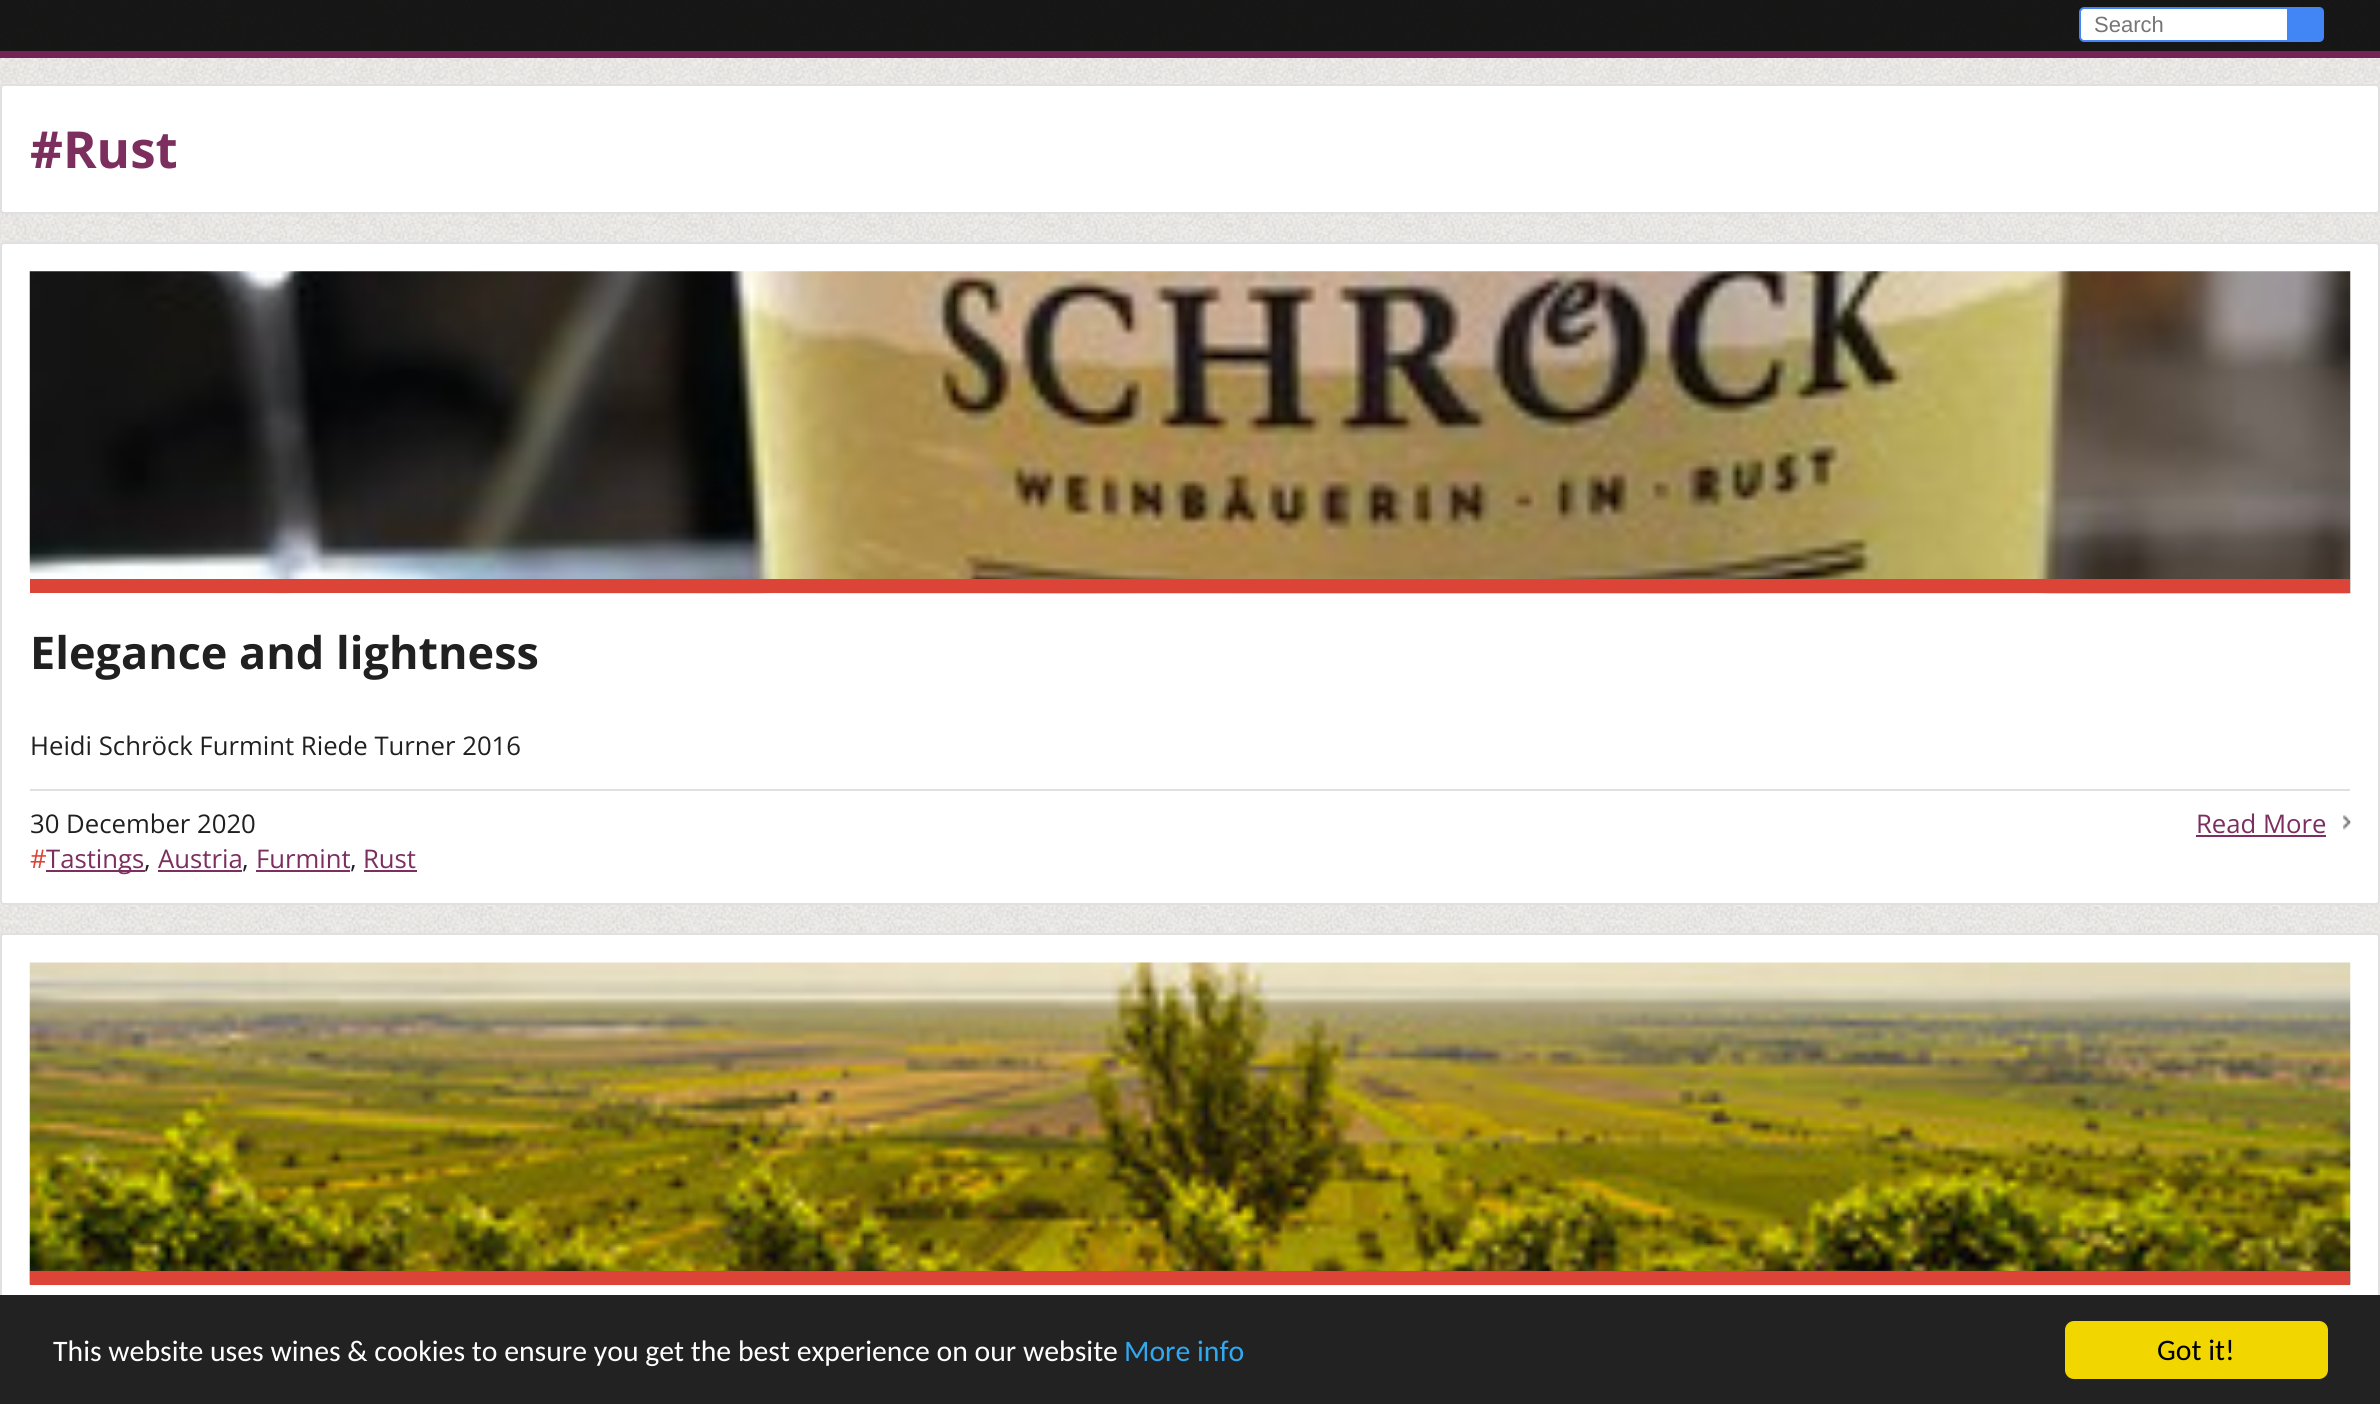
#include <cairo.h>
#include <math.h>
#include <stddef.h>


static void round_rect(cairo_t *cr, double x, double y, double w, double h, double r) {
    cairo_new_sub_path(cr);
    cairo_arc(cr, x + w - r, y + h - r, r, 0, M_PI / 2);
    cairo_arc(cr, x + r, y + h - r, r, M_PI / 2, M_PI);
    cairo_arc(cr, x + r, y + r, r, M_PI, 1.5 * M_PI);
    cairo_arc(cr, x + w - r, y + r, r, 1.5 * M_PI, 2 * M_PI);
    cairo_close_path(cr);
}

static void picture(cairo_t *cr, const char *path, double x, double y, double w, double h) {
    cairo_surface_t *image = cairo_image_surface_create_from_png(path);
    cairo_save(cr);
    cairo_set_source_surface(cr, image, x, y);
    cairo_rectangle(cr, x, y, w, h);
    cairo_fill(cr);
    cairo_restore(cr);
    cairo_surface_destroy(image);
}

int main(void) {
    cairo_surface_t *surface = cairo_image_surface_create(CAIRO_FORMAT_RGB24, 2380, 1404);
    cairo_t *cr = cairo_create(surface);
    cairo_font_options_t *options = cairo_font_options_create();
    cairo_font_options_set_hint_metrics(options, CAIRO_HINT_METRICS_OFF);
    cairo_font_options_set_hint_style(options, CAIRO_HINT_STYLE_NONE);
    cairo_set_font_options(cr, options);
    cairo_set_miter_limit(cr, 4);
    cairo_set_source_rgb(cr, 1, 1, 1);
    cairo_paint(cr);
    picture(cr, "img1.png", 0, 0, 2380, 937);
    cairo_set_source_rgba(cr, 0, 0, 0, 0.9);
    cairo_rectangle(cr, 0, 0, 2380, 51);
    cairo_fill(cr);
    cairo_set_source_rgb(cr, 0.459, 0.137, 0.337);
    cairo_rectangle(cr, 0, 51, 2380, 7);
    cairo_fill(cr);
    cairo_set_source_rgb(cr, 1, 1, 1);
    cairo_new_path(cr);
    cairo_move_to(cr, 2084, 8);
    cairo_line_to(cr, 2288, 8);
    cairo_line_to(cr, 2288, 41);
    cairo_line_to(cr, 2084, 41);
    cairo_curve_to(cr, 2082, 41, 2080, 39, 2080, 37);
    cairo_line_to(cr, 2080, 12);
    cairo_curve_to(cr, 2080, 10, 2082, 8, 2084, 8);
    cairo_close_path(cr);
    cairo_fill_preserve(cr);
    cairo_set_source_rgb(cr, 0.259, 0.522, 0.957);
    cairo_stroke(cr);
    cairo_select_font_face(cr, "Liberation Sans", CAIRO_FONT_SLANT_NORMAL, CAIRO_FONT_WEIGHT_NORMAL);
    cairo_set_font_size(cr, 22);
    cairo_set_source_rgb(cr, 0.459, 0.459, 0.459);
    cairo_move_to(cr, 2094, 32);
    cairo_show_text(cr, "Search");
    cairo_set_source_rgb(cr, 0.259, 0.522, 0.957);
    cairo_new_path(cr);
    cairo_move_to(cr, 2289, 7);
    cairo_line_to(cr, 2319, 7);
    cairo_curve_to(cr, 2322, 7, 2324, 9, 2324, 12);
    cairo_line_to(cr, 2324, 37);
    cairo_curve_to(cr, 2324, 40, 2322, 42, 2319, 42);
    cairo_line_to(cr, 2289, 42);
    cairo_close_path(cr);
    cairo_fill(cr);
    cairo_set_source_rgb(cr, 1, 1, 1);
    round_rect(cr, 1, 85, 2378, 128, 3);
    cairo_fill_preserve(cr);
    cairo_set_source_rgb(cr, 0.878, 0.878, 0.878);
    cairo_stroke(cr);
    cairo_select_font_face(cr, "Open Sans", CAIRO_FONT_SLANT_NORMAL, CAIRO_FONT_WEIGHT_BOLD);
    cairo_set_font_size(cr, 51);
    cairo_set_source_rgb(cr, 0.486, 0.18, 0.369);
    cairo_move_to(cr, 30, 168);
    cairo_show_text(cr, "#Rust");
    cairo_set_source_rgb(cr, 1, 1, 1);
    round_rect(cr, 1, 243, 2378, 661, 3);
    cairo_fill_preserve(cr);
    cairo_set_source_rgb(cr, 0.878, 0.878, 0.878);
    cairo_stroke(cr);
    picture(cr, "img2.png", 29, 271, 2322, 323);
    cairo_set_source_rgb(cr, 0.859, 0.267, 0.216);
    cairo_rectangle(cr, 30, 579, 2320, 14);
    cairo_fill(cr);
    cairo_set_font_size(cr, 45);
    cairo_set_source_rgb(cr, 0.125, 0.125, 0.125);
    cairo_move_to(cr, 30, 669);
    cairo_show_text(cr, "Elegance and lightness");
    cairo_select_font_face(cr, "Open Sans", CAIRO_FONT_SLANT_NORMAL, CAIRO_FONT_WEIGHT_NORMAL);
    cairo_set_font_size(cr, 25.7);
    cairo_move_to(cr, 30, 755);
    cairo_show_text(cr, "Heidi Schröck Furmint Riede Turner 2016");
    cairo_set_source_rgb(cr, 0.878, 0.878, 0.878);
    cairo_rectangle(cr, 30, 789, 2320, 2);
    cairo_fill(cr);
    cairo_set_source_rgb(cr, 0.125, 0.125, 0.125);
    cairo_move_to(cr, 30, 833);
    cairo_show_text(cr, "30 December 2020");
    picture(cr, "img3.png", 2343, 815, 8, 15);
    cairo_set_source_rgb(cr, 0.486, 0.18, 0.369);
    cairo_move_to(cr, 2196, 833);
    cairo_show_text(cr, "Read More");
    cairo_rectangle(cr, 2196, 835, 130, 2);
    cairo_fill(cr);
    cairo_set_source_rgb(cr, 0.859, 0.267, 0.216);
    cairo_move_to(cr, 30, 868);
    cairo_show_text(cr, "#");
    cairo_set_source_rgb(cr, 0.486, 0.18, 0.369);
    cairo_rectangle(cr, 46, 870, 99, 2);
    cairo_fill(cr);
    cairo_move_to(cr, 46, 868);
    cairo_show_text(cr, "Tastings");
    cairo_set_source_rgb(cr, 0.125, 0.125, 0.125);
    cairo_move_to(cr, 144, 868);
    cairo_show_text(cr, ",");
    cairo_set_source_rgb(cr, 0.486, 0.18, 0.369);
    cairo_move_to(cr, 158, 868);
    cairo_show_text(cr, "Austria");
    cairo_rectangle(cr, 158, 870, 84, 2);
    cairo_fill(cr);
    cairo_set_source_rgb(cr, 0.125, 0.125, 0.125);
    cairo_move_to(cr, 242, 868);
    cairo_show_text(cr, ",");
    cairo_set_source_rgb(cr, 0.486, 0.18, 0.369);
    cairo_move_to(cr, 256, 868);
    cairo_show_text(cr, "Furmint");
    cairo_rectangle(cr, 256, 870, 94, 2);
    cairo_fill(cr);
    cairo_set_source_rgb(cr, 0.125, 0.125, 0.125);
    cairo_move_to(cr, 350, 868);
    cairo_show_text(cr, ",");
    cairo_set_source_rgb(cr, 0.486, 0.18, 0.369);
    cairo_move_to(cr, 363, 868);
    cairo_show_text(cr, "Rust");
    cairo_rectangle(cr, 364, 870, 53, 2);
    cairo_fill(cr);
    cairo_set_source_rgb(cr, 1, 1, 1);
    round_rect(cr, 1, 934, 2378, 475, 3);
    cairo_fill_preserve(cr);
    cairo_set_source_rgb(cr, 0.878, 0.878, 0.878);
    cairo_stroke(cr);
    picture(cr, "img4.png", 29, 962, 2322, 323);
    cairo_set_source_rgb(cr, 0.859, 0.267, 0.216);
    cairo_rectangle(cr, 30, 1271, 2320, 14);
    cairo_fill(cr);
    cairo_set_source_rgb(cr, 0.133, 0.133, 0.133);
    cairo_rectangle(cr, 0, 1295, 2380, 109);
    cairo_fill(cr);
    cairo_select_font_face(cr, "Carlito", CAIRO_FONT_SLANT_NORMAL, CAIRO_FONT_WEIGHT_NORMAL);
    cairo_set_font_size(cr, 29.75);
    cairo_set_source_rgb(cr, 1, 1, 1);
    cairo_move_to(cr, 53, 1361);
    cairo_show_text(cr, "This website uses wines & cookies to ensure you get the best experience on our website");
    cairo_set_source_rgb(cr, 0.192, 0.659, 0.941);
    cairo_move_to(cr, 1124, 1361);
    cairo_show_text(cr, "More info");
    cairo_set_source_rgb(cr, 0.945, 0.839, 0);
    round_rect(cr, 2065, 1321, 263, 58, 9);
    cairo_fill(cr);
    cairo_set_source_rgb(cr, 0, 0, 0);
    cairo_move_to(cr, 2157, 1360);
    cairo_show_text(cr, "Got it!");
    cairo_surface_write_to_png(surface, "page.png");
    cairo_font_options_destroy(options);
    cairo_destroy(cr);
    cairo_surface_destroy(surface);
    return 0;
}
